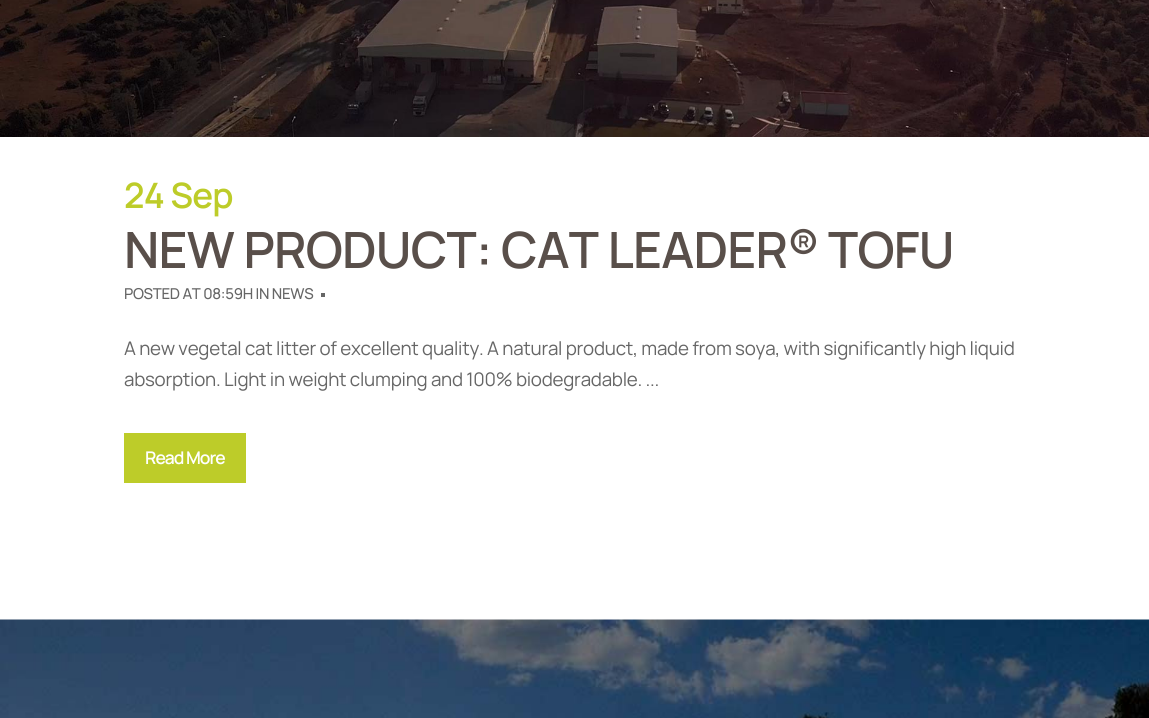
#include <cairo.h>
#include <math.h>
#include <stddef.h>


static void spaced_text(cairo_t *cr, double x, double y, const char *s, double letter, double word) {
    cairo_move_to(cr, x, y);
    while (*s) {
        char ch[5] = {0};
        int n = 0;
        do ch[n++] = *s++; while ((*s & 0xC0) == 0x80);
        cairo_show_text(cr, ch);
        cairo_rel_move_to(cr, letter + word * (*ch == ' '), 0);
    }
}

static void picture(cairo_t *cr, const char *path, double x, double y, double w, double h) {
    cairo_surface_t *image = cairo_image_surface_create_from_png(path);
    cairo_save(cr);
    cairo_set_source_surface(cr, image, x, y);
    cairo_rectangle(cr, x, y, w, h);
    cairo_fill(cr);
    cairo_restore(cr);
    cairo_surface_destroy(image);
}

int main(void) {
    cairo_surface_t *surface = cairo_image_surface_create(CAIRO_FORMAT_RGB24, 1149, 718);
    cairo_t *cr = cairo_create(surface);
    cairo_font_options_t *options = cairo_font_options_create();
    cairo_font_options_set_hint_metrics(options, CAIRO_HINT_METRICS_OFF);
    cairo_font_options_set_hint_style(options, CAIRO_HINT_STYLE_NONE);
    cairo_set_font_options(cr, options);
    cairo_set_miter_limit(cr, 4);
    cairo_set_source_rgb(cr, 1, 1, 1);
    cairo_paint(cr);
    picture(cr, "img1.png", 0, 0, 1149, 137);
    cairo_select_font_face(cr, "Manrope SemiBold", CAIRO_FONT_SLANT_NORMAL, CAIRO_FONT_WEIGHT_NORMAL);
    cairo_set_font_size(cr, 35);
    cairo_set_source_rgb(cr, 0.741, 0.8, 0.161);
    spaced_text(cr, 124, 208, "24 Sep", -0.75, 0);
    cairo_set_font_size(cr, 50);
    cairo_set_source_rgb(cr, 0.349, 0.31, 0.29);
    spaced_text(cr, 124, 268, "NEW PRODUCT: CAT LEADER® TOFU", -0.75, 0);
    cairo_select_font_face(cr, "Manrope Medium", CAIRO_FONT_SLANT_NORMAL, CAIRO_FONT_WEIGHT_NORMAL);
    cairo_set_font_size(cr, 15);
    cairo_set_source_rgb(cr, 0.4, 0.4, 0.4);
    spaced_text(cr, 124, 299, "POSTED AT 08:59H IN NEWS", -0.3, 0);
    cairo_rectangle(cr, 321, 293, 4, 4);
    cairo_fill(cr);
    cairo_select_font_face(cr, "Manrope", CAIRO_FONT_SLANT_NORMAL, CAIRO_FONT_WEIGHT_NORMAL);
    cairo_set_font_size(cr, 18.75);
    spaced_text(cr, 124, 355, "A new vegetal cat litter of excellent quality. A natural product, made from soya, with significantly high liquid", -0.25, 0);
    spaced_text(cr, 124, 386, "absorption. Light in weight clumping and 100% biodegradable. ...", -0.25, 0);
    cairo_set_source_rgb(cr, 0.741, 0.8, 0.161);
    cairo_rectangle(cr, 124, 433, 122, 50);
    cairo_fill(cr);
    cairo_select_font_face(cr, "Manrope SemiBold", CAIRO_FONT_SLANT_NORMAL, CAIRO_FONT_WEIGHT_NORMAL);
    cairo_set_font_size(cr, 17.5);
    cairo_set_source_rgb(cr, 1, 1, 1);
    spaced_text(cr, 145, 464, "Read More", -1, 0);
    picture(cr, "img2.png", 0, 619, 1149, 99);
    cairo_surface_write_to_png(surface, "page.png");
    cairo_font_options_destroy(options);
    cairo_destroy(cr);
    cairo_surface_destroy(surface);
    return 0;
}
